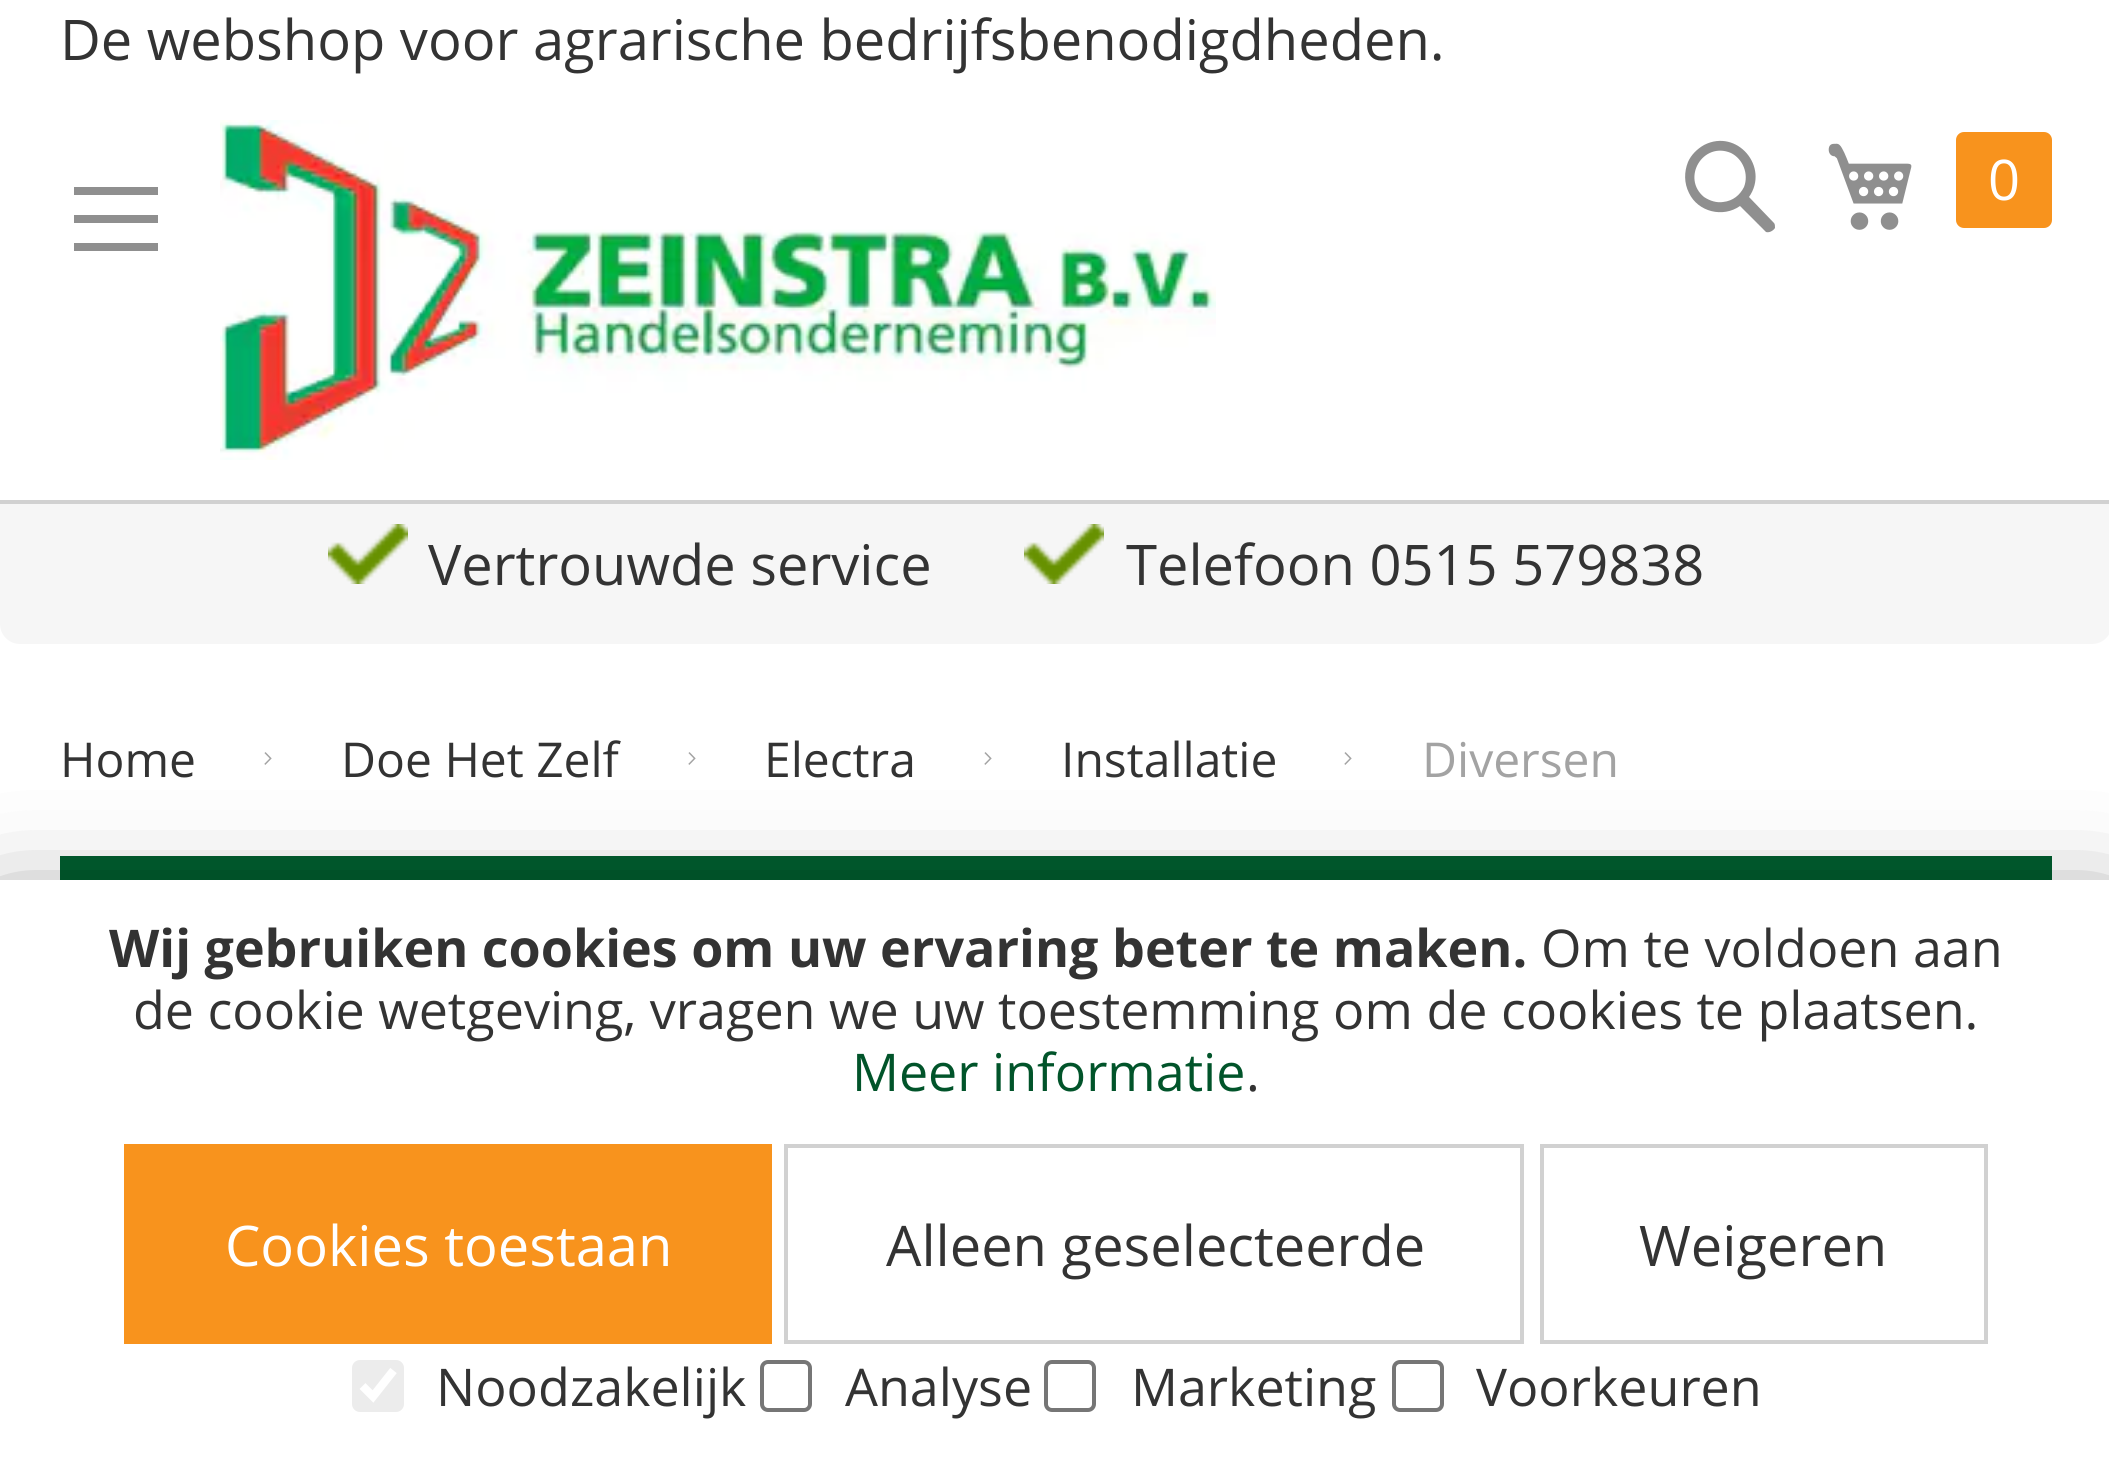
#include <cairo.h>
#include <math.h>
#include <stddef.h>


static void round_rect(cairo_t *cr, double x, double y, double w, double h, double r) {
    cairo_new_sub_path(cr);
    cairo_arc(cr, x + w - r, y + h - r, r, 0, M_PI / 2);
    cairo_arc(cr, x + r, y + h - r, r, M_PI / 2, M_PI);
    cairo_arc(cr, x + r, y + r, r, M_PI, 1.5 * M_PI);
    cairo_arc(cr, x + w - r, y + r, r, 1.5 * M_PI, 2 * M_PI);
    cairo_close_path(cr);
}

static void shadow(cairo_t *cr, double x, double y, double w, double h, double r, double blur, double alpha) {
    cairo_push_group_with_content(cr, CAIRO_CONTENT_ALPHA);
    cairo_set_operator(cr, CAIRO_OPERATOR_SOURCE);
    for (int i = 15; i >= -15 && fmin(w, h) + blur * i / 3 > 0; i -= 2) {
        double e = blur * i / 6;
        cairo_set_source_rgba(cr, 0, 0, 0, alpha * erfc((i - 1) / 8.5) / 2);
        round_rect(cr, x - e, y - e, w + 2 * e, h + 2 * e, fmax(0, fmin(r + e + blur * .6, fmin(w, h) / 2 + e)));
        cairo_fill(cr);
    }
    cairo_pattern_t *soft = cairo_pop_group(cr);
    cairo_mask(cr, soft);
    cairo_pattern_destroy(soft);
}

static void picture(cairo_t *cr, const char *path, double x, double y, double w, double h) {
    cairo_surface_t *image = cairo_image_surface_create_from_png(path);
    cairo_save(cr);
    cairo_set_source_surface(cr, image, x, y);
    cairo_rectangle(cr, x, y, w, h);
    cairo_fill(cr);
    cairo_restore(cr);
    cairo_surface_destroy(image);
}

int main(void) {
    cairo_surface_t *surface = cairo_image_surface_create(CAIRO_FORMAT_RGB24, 2109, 1459);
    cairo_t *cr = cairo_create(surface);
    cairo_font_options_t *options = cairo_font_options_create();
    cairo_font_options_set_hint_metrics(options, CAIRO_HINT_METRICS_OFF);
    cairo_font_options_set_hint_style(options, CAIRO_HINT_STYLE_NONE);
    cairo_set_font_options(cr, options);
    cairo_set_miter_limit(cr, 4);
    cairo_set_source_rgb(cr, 1, 1, 1);
    cairo_paint(cr);
    cairo_set_source_rgb(cr, 0.82, 0.82, 0.82);
    cairo_rectangle(cr, 0, 500, 2109, 4);
    cairo_fill(cr);
    cairo_select_font_face(cr, "Open Sans", CAIRO_FONT_SLANT_NORMAL, CAIRO_FONT_WEIGHT_NORMAL);
    cairo_set_font_size(cr, 56);
    cairo_set_source_rgb(cr, 0.2, 0.2, 0.2);
    cairo_move_to(cr, 60, 60);
    cairo_show_text(cr, "De webshop voor agrarische bedrijfsbenodigdheden.");
    picture(cr, "img1.png", 220, 120, 996, 340);
    cairo_set_source_rgb(cr, 0.561, 0.561, 0.561);
    cairo_new_path(cr);
    cairo_move_to(cr, 1774, 223);
    cairo_line_to(cr, 1749, 197);
    cairo_curve_to(cr, 1770, 167, 1737, 128, 1704, 145);
    cairo_curve_to(cr, 1697, 149, 1691, 155, 1688, 162);
    cairo_curve_to(cr, 1684, 172, 1684, 183, 1689, 193);
    cairo_curve_to(cr, 1698, 212, 1723, 218, 1740, 206);
    cairo_line_to(cr, 1766, 232);
    cairo_curve_to(cr, 1769, 233, 1773, 231, 1775, 228);
    cairo_curve_to(cr, 1775, 226, 1775, 224, 1774, 223);
    cairo_close_path(cr);
    cairo_move_to(cr, 1744, 187);
    cairo_curve_to(cr, 1740, 195, 1733, 201, 1723, 202);
    cairo_curve_to(cr, 1717, 203, 1710, 201, 1704, 197);
    cairo_curve_to(cr, 1681, 178, 1703, 141, 1731, 153);
    cairo_curve_to(cr, 1743, 159, 1749, 174, 1744, 187);
    cairo_close_path(cr);
    cairo_fill(cr);
    picture(cr, "img2.png", 1828, 143, 84, 87);
    cairo_set_source_rgb(cr, 0.969, 0.576, 0.114);
    round_rect(cr, 1956, 132, 96, 96, 8);
    cairo_fill(cr);
    cairo_set_source_rgb(cr, 1, 1, 1);
    cairo_move_to(cr, 1988, 200);
    cairo_show_text(cr, "0");
    cairo_set_source_rgb(cr, 0.561, 0.561, 0.561);
    cairo_new_path(cr);
    cairo_move_to(cr, 74, 187);
    cairo_line_to(cr, 74, 195);
    cairo_line_to(cr, 158, 195);
    cairo_line_to(cr, 158, 187);
    cairo_close_path(cr);
    cairo_move_to(cr, 74, 223);
    cairo_line_to(cr, 158, 223);
    cairo_line_to(cr, 158, 215);
    cairo_line_to(cr, 74, 215);
    cairo_close_path(cr);
    cairo_move_to(cr, 74, 251);
    cairo_line_to(cr, 158, 251);
    cairo_line_to(cr, 158, 243);
    cairo_line_to(cr, 74, 243);
    cairo_close_path(cr);
    cairo_fill(cr);
    cairo_set_source_rgb(cr, 0.961, 0.961, 0.961);
    cairo_new_path(cr);
    cairo_move_to(cr, 0, 504);
    cairo_line_to(cr, 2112, 504);
    cairo_line_to(cr, 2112, 624);
    cairo_curve_to(cr, 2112, 635, 2103, 644, 2092, 644);
    cairo_line_to(cr, 20, 644);
    cairo_curve_to(cr, 9, 644, 0, 635, 0, 624);
    cairo_close_path(cr);
    cairo_fill(cr);
    picture(cr, "img3.png", 328, 524, 80, 60);
    cairo_set_source_rgb(cr, 0.2, 0.2, 0.2);
    cairo_move_to(cr, 428, 585);
    cairo_show_text(cr, "Vertrouwde service");
    picture(cr, "img3.png", 1024, 524, 80, 60);
    cairo_move_to(cr, 1126, 585);
    cairo_show_text(cr, "Telefoon 0515 579838");
    cairo_set_font_size(cr, 48);
    cairo_move_to(cr, 60, 777);
    cairo_show_text(cr, "Home");
    picture(cr, "img4.png", 264, 752, 8, 13);
    cairo_move_to(cr, 341, 777);
    cairo_show_text(cr, "Doe Het Zelf");
    picture(cr, "img4.png", 688, 752, 8, 13);
    cairo_move_to(cr, 764, 777);
    cairo_show_text(cr, "Electra");
    picture(cr, "img4.png", 984, 752, 8, 13);
    cairo_move_to(cr, 1061, 777);
    cairo_show_text(cr, "Installatie");
    picture(cr, "img4.png", 1344, 752, 8, 13);
    cairo_set_source_rgb(cr, 0.639, 0.639, 0.639);
    cairo_move_to(cr, 1422, 777);
    cairo_show_text(cr, "Diversen");
    cairo_set_source_rgb(cr, 0, 0.365, 0.18);
    cairo_rectangle(cr, 60, 856, 1992, 24);
    cairo_fill(cr);
    cairo_set_source_rgb(cr, 0, 0, 0);
    shadow(cr, 0, 940, 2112, 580, 0, 60, 0.83);
    cairo_set_source_rgb(cr, 1, 1, 1);
    cairo_rectangle(cr, 0, 880, 2109, 579);
    cairo_fill(cr);
    cairo_select_font_face(cr, "Open Sans", CAIRO_FONT_SLANT_NORMAL, CAIRO_FONT_WEIGHT_BOLD);
    cairo_set_font_size(cr, 52);
    cairo_set_source_rgb(cr, 0.2, 0.2, 0.2);
    cairo_move_to(cr, 109, 967);
    cairo_show_text(cr, "Wij gebruiken cookies om uw ervaring beter te maken.");
    cairo_select_font_face(cr, "Open Sans", CAIRO_FONT_SLANT_NORMAL, CAIRO_FONT_WEIGHT_NORMAL);
    cairo_move_to(cr, 1541, 967);
    cairo_show_text(cr, "Om te voldoen aan");
    cairo_move_to(cr, 133, 1029);
    cairo_show_text(cr, "de cookie wetgeving, vragen we uw toestemming om de cookies te plaatsen.");
    cairo_set_source_rgb(cr, 0.004, 0.329, 0.165);
    cairo_move_to(cr, 852, 1091);
    cairo_show_text(cr, "Meer informatie");
    cairo_set_source_rgb(cr, 0.2, 0.2, 0.2);
    cairo_move_to(cr, 1246, 1091);
    cairo_show_text(cr, ".");
    cairo_set_source_rgb(cr, 0.969, 0.576, 0.114);
    cairo_rectangle(cr, 124, 1144, 648, 200);
    cairo_fill(cr);
    cairo_set_font_size(cr, 56);
    cairo_set_source_rgb(cr, 1, 1, 1);
    cairo_move_to(cr, 225, 1266);
    cairo_show_text(cr, "Cookies toestaan");
    cairo_rectangle(cr, 786, 1146, 736, 196);
    cairo_set_source_rgb(cr, 0.82, 0.82, 0.82);
    cairo_set_line_width(cr, 4);
    cairo_stroke(cr);
    cairo_set_source_rgb(cr, 0.2, 0.2, 0.2);
    cairo_move_to(cr, 886, 1266);
    cairo_show_text(cr, "Alleen geselecteerde");
    cairo_rectangle(cr, 1542, 1146, 444, 196);
    cairo_set_source_rgb(cr, 0.82, 0.82, 0.82);
    cairo_stroke(cr);
    cairo_set_source_rgb(cr, 0.2, 0.2, 0.2);
    cairo_move_to(cr, 1639, 1266);
    cairo_show_text(cr, "Weigeren");
    cairo_set_source_rgb(cr, 0.922, 0.922, 0.922);
    round_rect(cr, 352, 1360, 52, 52, 8);
    cairo_fill(cr);
    cairo_new_path(cr);
    cairo_move_to(cr, 362.5, 1386);
    cairo_line_to(cr, 373, 1396.5);
    cairo_line_to(cr, 393.5, 1370.5);
    cairo_set_source_rgb(cr, 1, 1, 1);
    cairo_set_line_width(cr, 8.3);
    cairo_stroke(cr);
    cairo_set_font_size(cr, 52);
    cairo_set_source_rgb(cr, 0.2, 0.2, 0.2);
    cairo_move_to(cr, 436, 1406);
    cairo_show_text(cr, "Noodzakelijk");
    round_rect(cr, 762, 1362, 48, 48, 6);
    cairo_set_source_rgb(cr, 0.463, 0.463, 0.463);
    cairo_set_line_width(cr, 4);
    cairo_stroke(cr);
    cairo_set_source_rgb(cr, 0.2, 0.2, 0.2);
    cairo_move_to(cr, 845, 1406);
    cairo_show_text(cr, "Analyse");
    round_rect(cr, 1046, 1362, 48, 48, 6);
    cairo_set_source_rgb(cr, 0.463, 0.463, 0.463);
    cairo_stroke(cr);
    cairo_set_source_rgb(cr, 0.2, 0.2, 0.2);
    cairo_move_to(cr, 1131, 1406);
    cairo_show_text(cr, "Marketing");
    round_rect(cr, 1394, 1362, 48, 48, 6);
    cairo_set_source_rgb(cr, 0.463, 0.463, 0.463);
    cairo_stroke(cr);
    cairo_set_source_rgb(cr, 0.2, 0.2, 0.2);
    cairo_move_to(cr, 1476, 1406);
    cairo_show_text(cr, "Voorkeuren");
    cairo_surface_write_to_png(surface, "page.png");
    cairo_font_options_destroy(options);
    cairo_destroy(cr);
    cairo_surface_destroy(surface);
    return 0;
}
